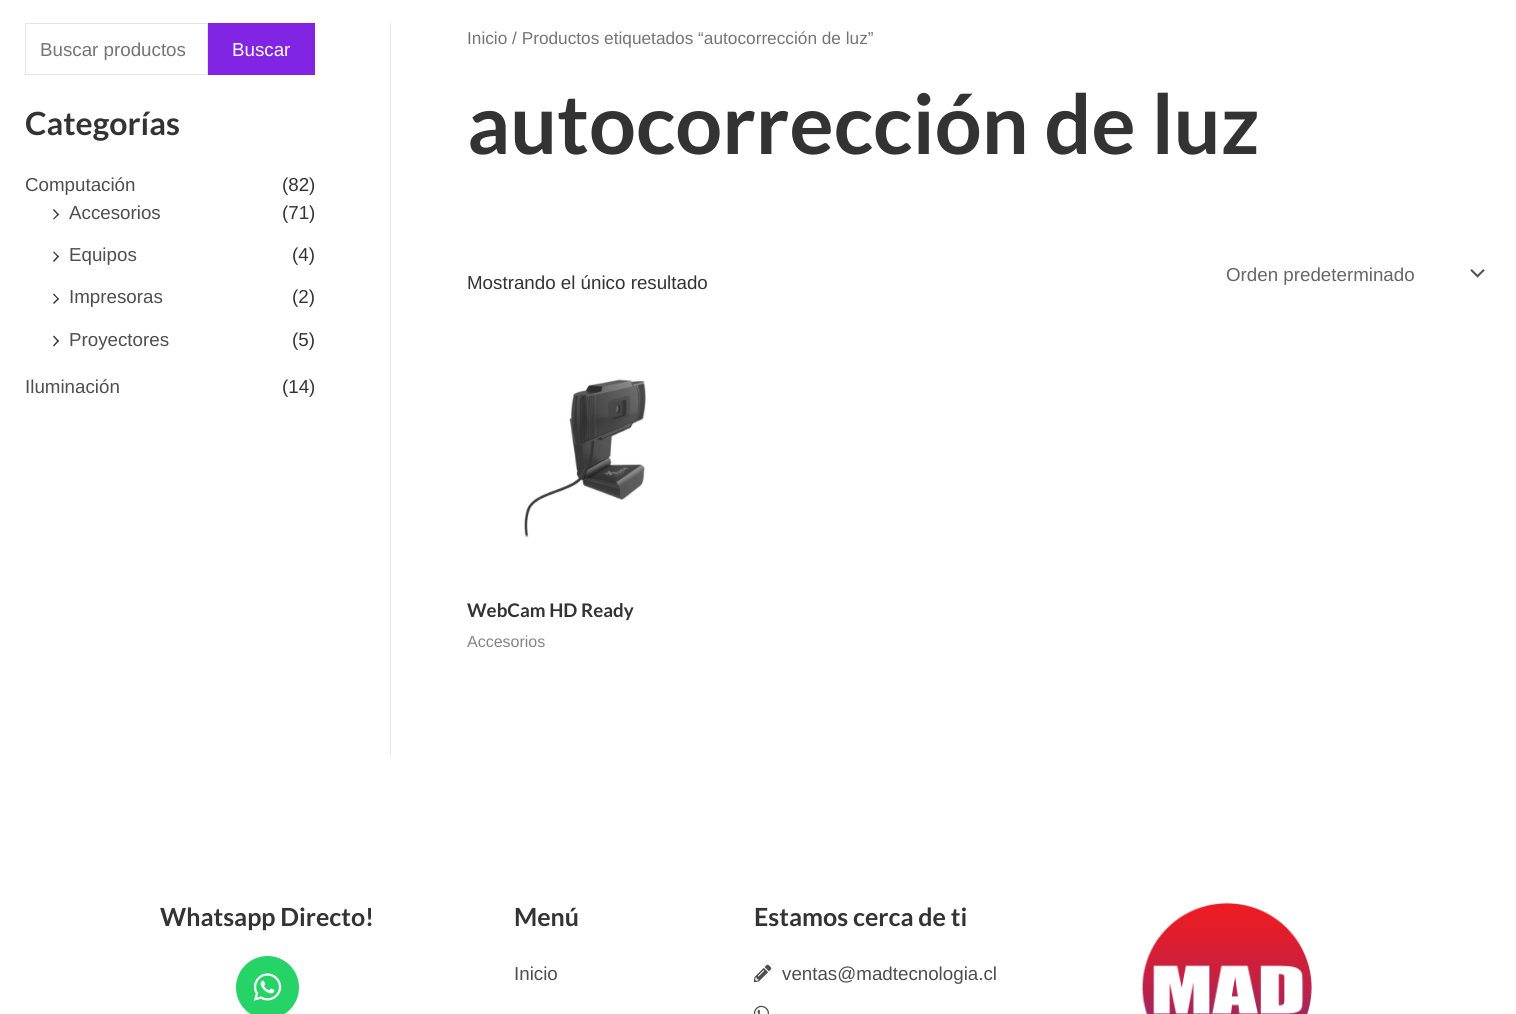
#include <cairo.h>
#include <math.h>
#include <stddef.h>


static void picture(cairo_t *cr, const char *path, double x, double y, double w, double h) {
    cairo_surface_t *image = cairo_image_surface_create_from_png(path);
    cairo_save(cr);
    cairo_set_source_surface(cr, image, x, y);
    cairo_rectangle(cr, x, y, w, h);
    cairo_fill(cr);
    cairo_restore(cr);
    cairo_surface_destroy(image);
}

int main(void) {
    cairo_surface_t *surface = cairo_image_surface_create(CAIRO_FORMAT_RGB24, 1516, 1014);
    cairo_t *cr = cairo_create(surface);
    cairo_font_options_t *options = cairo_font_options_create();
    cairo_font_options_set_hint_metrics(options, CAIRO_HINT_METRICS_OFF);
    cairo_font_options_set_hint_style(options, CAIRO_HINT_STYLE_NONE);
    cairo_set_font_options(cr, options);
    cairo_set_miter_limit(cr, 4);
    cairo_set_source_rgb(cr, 1, 1, 1);
    cairo_paint(cr);
    cairo_set_source_rgb(cr, 0.898, 0.898, 0.898);
    cairo_rectangle(cr, 390, 23, 1, 731);
    cairo_fill(cr);
    cairo_rectangle(cr, 25.5, 23.5, 182, 51);
    cairo_set_line_width(cr, 1);
    cairo_stroke(cr);
    cairo_select_font_face(cr, "Liberation Sans", CAIRO_FONT_SLANT_NORMAL, CAIRO_FONT_WEIGHT_NORMAL);
    cairo_set_font_size(cr, 18.75);
    cairo_set_source_rgb(cr, 0.459, 0.459, 0.459);
    cairo_move_to(cr, 40, 56);
    cairo_show_text(cr, "Buscar productos");
    cairo_set_source_rgb(cr, 0.51, 0.141, 0.89);
    cairo_rectangle(cr, 208, 23, 107, 52);
    cairo_fill(cr);
    cairo_set_source_rgb(cr, 1, 1, 1);
    cairo_move_to(cr, 232, 56);
    cairo_show_text(cr, "Buscar");
    cairo_select_font_face(cr, "Lato", CAIRO_FONT_SLANT_NORMAL, CAIRO_FONT_WEIGHT_BOLD);
    cairo_set_font_size(cr, 32);
    cairo_set_source_rgb(cr, 0.2, 0.2, 0.2);
    cairo_move_to(cr, 25, 135);
    cairo_show_text(cr, "Categorías");
    cairo_select_font_face(cr, "Liberation Sans", CAIRO_FONT_SLANT_NORMAL, CAIRO_FONT_WEIGHT_NORMAL);
    cairo_set_font_size(cr, 18.75);
    cairo_set_source_rgb(cr, 0.306, 0.306, 0.306);
    cairo_move_to(cr, 25, 191);
    cairo_show_text(cr, "Computación");
    cairo_set_source_rgb(cr, 0.2, 0.2, 0.2);
    cairo_move_to(cr, 282, 191);
    cairo_show_text(cr, "(82)");
    cairo_new_path(cr);
    cairo_move_to(cr, 54, 209);
    cairo_line_to(cr, 59, 214.5);
    cairo_line_to(cr, 58, 215.5);
    cairo_line_to(cr, 53, 210);
    cairo_close_path(cr);
    cairo_fill(cr);
    cairo_new_path(cr);
    cairo_move_to(cr, 58, 213.5);
    cairo_line_to(cr, 59, 214.5);
    cairo_line_to(cr, 54, 219.5);
    cairo_line_to(cr, 53, 219);
    cairo_close_path(cr);
    cairo_fill(cr);
    cairo_set_source_rgb(cr, 0.306, 0.306, 0.306);
    cairo_move_to(cr, 69, 219);
    cairo_show_text(cr, "Accesorios");
    cairo_set_source_rgb(cr, 0.2, 0.2, 0.2);
    cairo_move_to(cr, 282, 219);
    cairo_show_text(cr, "(71)");
    cairo_new_path(cr);
    cairo_move_to(cr, 54, 251.5);
    cairo_line_to(cr, 59, 256.5);
    cairo_line_to(cr, 58, 257.5);
    cairo_line_to(cr, 53, 252);
    cairo_close_path(cr);
    cairo_fill(cr);
    cairo_new_path(cr);
    cairo_move_to(cr, 58, 255.5);
    cairo_line_to(cr, 59, 256.5);
    cairo_line_to(cr, 54, 262);
    cairo_line_to(cr, 53, 261);
    cairo_close_path(cr);
    cairo_fill(cr);
    cairo_set_source_rgb(cr, 0.306, 0.306, 0.306);
    cairo_move_to(cr, 69, 261);
    cairo_show_text(cr, "Equipos");
    cairo_set_source_rgb(cr, 0.2, 0.2, 0.2);
    cairo_move_to(cr, 292, 261);
    cairo_show_text(cr, "(4)");
    cairo_new_path(cr);
    cairo_move_to(cr, 54, 293.5);
    cairo_line_to(cr, 59, 299);
    cairo_line_to(cr, 58, 299.5);
    cairo_line_to(cr, 53, 294.5);
    cairo_close_path(cr);
    cairo_fill(cr);
    cairo_new_path(cr);
    cairo_move_to(cr, 58, 298);
    cairo_line_to(cr, 59, 299);
    cairo_line_to(cr, 54, 304);
    cairo_line_to(cr, 53, 303);
    cairo_close_path(cr);
    cairo_fill(cr);
    cairo_set_source_rgb(cr, 0.306, 0.306, 0.306);
    cairo_move_to(cr, 69, 303);
    cairo_show_text(cr, "Impresoras");
    cairo_set_source_rgb(cr, 0.2, 0.2, 0.2);
    cairo_move_to(cr, 292, 303);
    cairo_show_text(cr, "(2)");
    cairo_new_path(cr);
    cairo_move_to(cr, 54, 335.5);
    cairo_line_to(cr, 59, 341);
    cairo_line_to(cr, 58, 342);
    cairo_line_to(cr, 53, 336.5);
    cairo_close_path(cr);
    cairo_fill(cr);
    cairo_new_path(cr);
    cairo_move_to(cr, 58, 340);
    cairo_line_to(cr, 59, 341);
    cairo_line_to(cr, 54, 346.5);
    cairo_line_to(cr, 53, 345.5);
    cairo_close_path(cr);
    cairo_fill(cr);
    cairo_set_source_rgb(cr, 0.306, 0.306, 0.306);
    cairo_move_to(cr, 69, 346);
    cairo_show_text(cr, "Proyectores");
    cairo_set_source_rgb(cr, 0.2, 0.2, 0.2);
    cairo_move_to(cr, 292, 346);
    cairo_show_text(cr, "(5)");
    cairo_set_source_rgb(cr, 0.306, 0.306, 0.306);
    cairo_move_to(cr, 25, 393);
    cairo_show_text(cr, "Iluminación");
    cairo_set_source_rgb(cr, 0.2, 0.2, 0.2);
    cairo_move_to(cr, 282, 393);
    cairo_show_text(cr, "(14)");
    cairo_set_font_size(cr, 17.25);
    cairo_set_source_rgb(cr, 0.459, 0.459, 0.459);
    cairo_move_to(cr, 467, 44);
    cairo_show_text(cr, "Inicio / Productos etiquetados “autocorrección de luz”");
    cairo_select_font_face(cr, "Lato", CAIRO_FONT_SLANT_NORMAL, CAIRO_FONT_WEIGHT_BOLD);
    cairo_set_font_size(cr, 82.5);
    cairo_set_source_rgb(cr, 0.2, 0.2, 0.2);
    cairo_move_to(cr, 467, 154);
    cairo_show_text(cr, "autocorrección de luz");
    cairo_select_font_face(cr, "Liberation Sans", CAIRO_FONT_SLANT_NORMAL, CAIRO_FONT_WEIGHT_NORMAL);
    cairo_set_font_size(cr, 18.75);
    cairo_move_to(cr, 467, 289);
    cairo_show_text(cr, "Mostrando el único resultado");
    picture(cr, "img1.png", 1470, 269, 15, 9);
    cairo_set_source_rgb(cr, 0.4, 0.4, 0.4);
    cairo_move_to(cr, 1226, 281);
    cairo_show_text(cr, "Orden predeterminado");
    picture(cr, "img2.png", 524, 379, 122, 159);
    cairo_select_font_face(cr, "Lato", CAIRO_FONT_SLANT_NORMAL, CAIRO_FONT_WEIGHT_BOLD);
    cairo_set_source_rgb(cr, 0.2, 0.2, 0.2);
    cairo_move_to(cr, 467, 617);
    cairo_show_text(cr, "WebCam HD Ready");
    cairo_select_font_face(cr, "Liberation Sans", CAIRO_FONT_SLANT_NORMAL, CAIRO_FONT_WEIGHT_NORMAL);
    cairo_set_font_size(cr, 16);
    cairo_set_source_rgb(cr, 0.522, 0.522, 0.522);
    cairo_move_to(cr, 467, 647);
    cairo_show_text(cr, "Accesorios");
    cairo_select_font_face(cr, "Lato", CAIRO_FONT_SLANT_NORMAL, CAIRO_FONT_WEIGHT_BOLD);
    cairo_set_font_size(cr, 25);
    cairo_set_source_rgb(cr, 0.2, 0.2, 0.2);
    cairo_move_to(cr, 160, 926);
    cairo_show_text(cr, "Whatsapp Directo!");
    cairo_set_source_rgb(cr, 0.145, 0.827, 0.4);
    cairo_new_path(cr);
    cairo_arc(cr, 267.5, 987.5, 31.5, 0, 2 * M_PI);
    cairo_fill(cr);
    picture(cr, "img3.png", 253, 973, 29, 28);
    cairo_set_source_rgb(cr, 0.2, 0.2, 0.2);
    cairo_move_to(cr, 514, 926);
    cairo_show_text(cr, "Menú");
    cairo_select_font_face(cr, "Liberation Sans", CAIRO_FONT_SLANT_NORMAL, CAIRO_FONT_WEIGHT_NORMAL);
    cairo_set_font_size(cr, 18.75);
    cairo_set_source_rgb(cr, 0.306, 0.306, 0.306);
    cairo_move_to(cr, 514, 980);
    cairo_show_text(cr, "Inicio");
    cairo_select_font_face(cr, "Lato", CAIRO_FONT_SLANT_NORMAL, CAIRO_FONT_WEIGHT_BOLD);
    cairo_set_font_size(cr, 25);
    cairo_set_source_rgb(cr, 0.2, 0.2, 0.2);
    cairo_move_to(cr, 754, 926);
    cairo_show_text(cr, "Estamos cerca de ti");
    picture(cr, "img4.png", 753, 964, 19, 19);
    cairo_select_font_face(cr, "Liberation Sans", CAIRO_FONT_SLANT_NORMAL, CAIRO_FONT_WEIGHT_NORMAL);
    cairo_set_font_size(cr, 18.75);
    cairo_set_source_rgb(cr, 0.306, 0.306, 0.306);
    cairo_move_to(cr, 782, 980);
    cairo_show_text(cr, "ventas@madtecnologia.cl");
    picture(cr, "img5.png", 753, 1005, 17, 9);
    picture(cr, "img6.png", 1142, 902, 170, 112);
    cairo_surface_write_to_png(surface, "page.png");
    cairo_font_options_destroy(options);
    cairo_destroy(cr);
    cairo_surface_destroy(surface);
    return 0;
}
